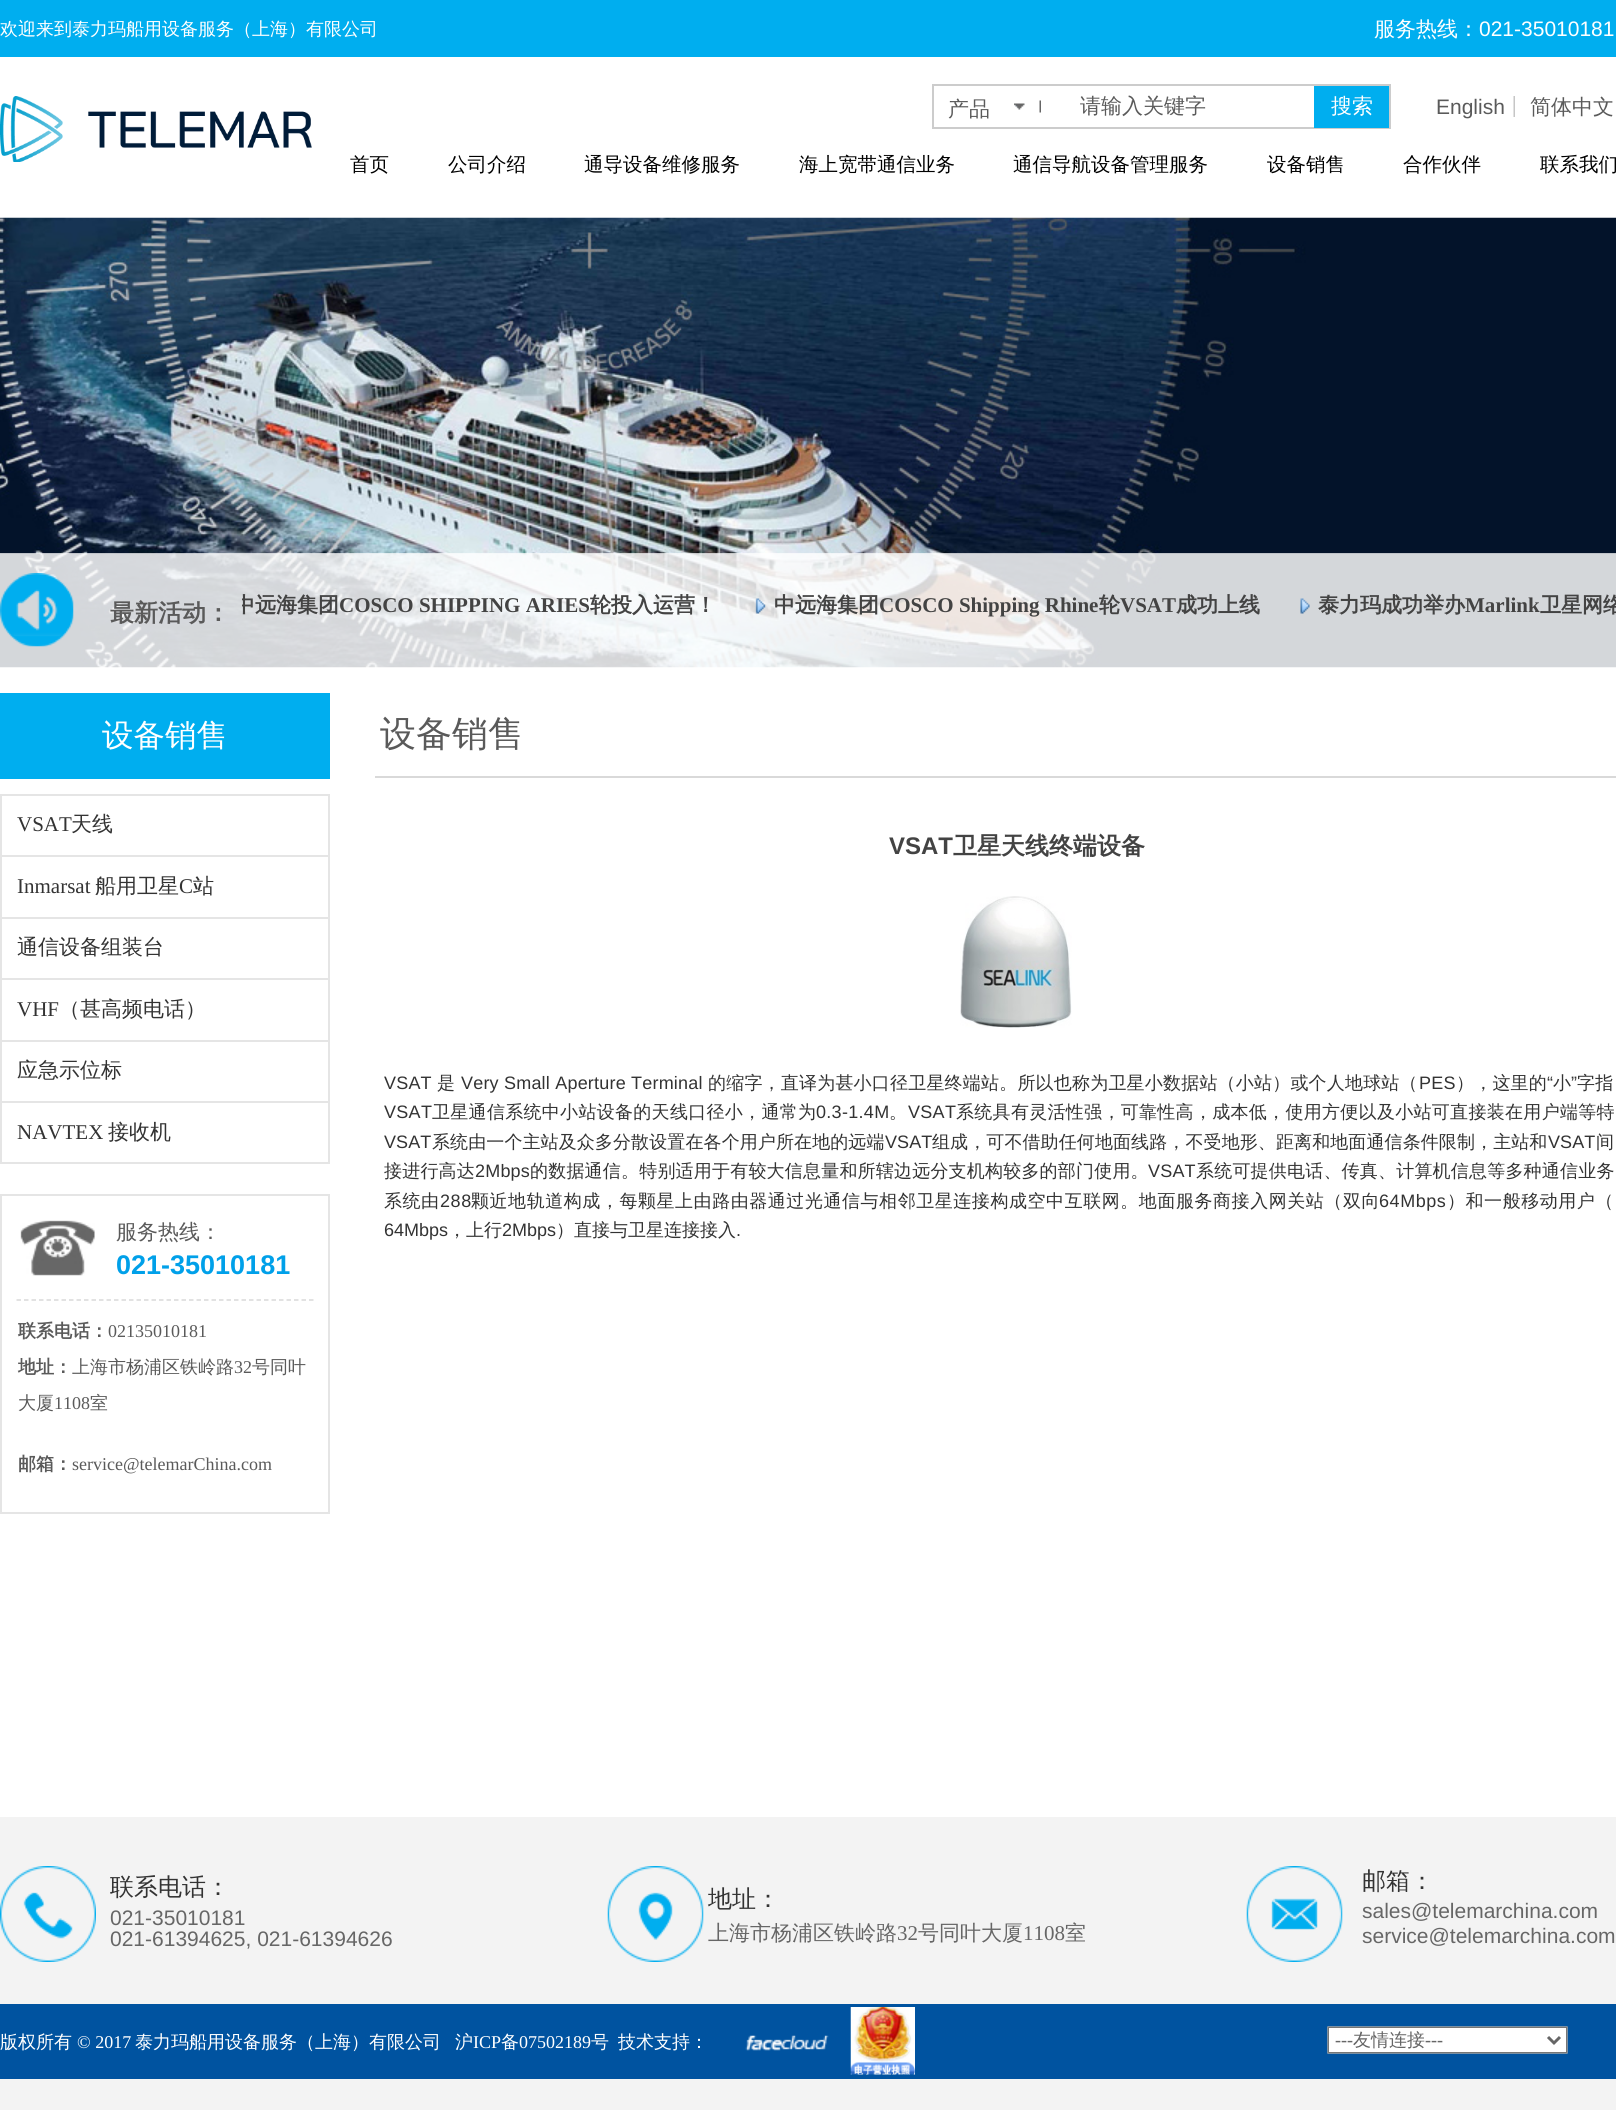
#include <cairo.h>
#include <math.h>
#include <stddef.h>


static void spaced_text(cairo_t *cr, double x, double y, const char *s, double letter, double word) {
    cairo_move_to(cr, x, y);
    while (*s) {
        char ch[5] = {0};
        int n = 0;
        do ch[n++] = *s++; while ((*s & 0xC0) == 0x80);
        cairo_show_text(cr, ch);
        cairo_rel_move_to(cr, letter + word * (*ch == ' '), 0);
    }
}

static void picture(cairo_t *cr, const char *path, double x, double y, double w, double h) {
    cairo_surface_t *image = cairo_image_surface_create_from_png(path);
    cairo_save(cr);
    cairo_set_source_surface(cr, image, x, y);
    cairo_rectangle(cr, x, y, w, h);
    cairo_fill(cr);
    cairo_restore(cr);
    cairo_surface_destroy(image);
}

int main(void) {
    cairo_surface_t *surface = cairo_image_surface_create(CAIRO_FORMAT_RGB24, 1616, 2110);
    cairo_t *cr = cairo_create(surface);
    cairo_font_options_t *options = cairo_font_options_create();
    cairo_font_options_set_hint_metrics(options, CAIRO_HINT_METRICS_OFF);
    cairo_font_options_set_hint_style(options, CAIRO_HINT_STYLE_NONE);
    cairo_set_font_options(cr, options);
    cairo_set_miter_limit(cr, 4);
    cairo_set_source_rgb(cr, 1, 1, 1);
    cairo_paint(cr);
    cairo_set_source_rgb(cr, 0, 0.682, 0.937);
    cairo_rectangle(cr, 0, 0, 1616, 57);
    cairo_fill(cr);
    cairo_select_font_face(cr, "WenQuanYi Zen Hei Medium", CAIRO_FONT_SLANT_NORMAL, CAIRO_FONT_WEIGHT_NORMAL);
    cairo_set_font_size(cr, 18);
    cairo_set_source_rgb(cr, 1, 1, 1);
    cairo_move_to(cr, 0, 35);
    cairo_show_text(cr, "欢迎来到泰力玛船用设备服务（上海）有限公司");
    cairo_set_font_size(cr, 21);
    cairo_move_to(cr, 1374, 36);
    cairo_show_text(cr, "服务热线：");
    cairo_select_font_face(cr, "Liberation Sans", CAIRO_FONT_SLANT_NORMAL, CAIRO_FONT_WEIGHT_NORMAL);
    cairo_move_to(cr, 1479, 36);
    cairo_show_text(cr, "021-35010181");
    picture(cr, "img1.png", 0, 96, 312, 66);
    cairo_rectangle(cr, 933, 85, 457, 43);
    cairo_set_source_rgb(cr, 0.8, 0.8, 0.8);
    cairo_stroke(cr);
    picture(cr, "img2.png", 1014, 100, 27, 13);
    cairo_select_font_face(cr, "WenQuanYi Zen Hei Medium", CAIRO_FONT_SLANT_NORMAL, CAIRO_FONT_WEIGHT_NORMAL);
    cairo_set_source_rgb(cr, 0.353, 0.353, 0.353);
    cairo_move_to(cr, 948, 116);
    cairo_show_text(cr, "产品");
    cairo_move_to(cr, 1080, 113);
    cairo_show_text(cr, "请输入关键字");
    cairo_set_source_rgb(cr, 0, 0.682, 0.937);
    cairo_rectangle(cr, 1314, 86, 75, 42);
    cairo_fill(cr);
    cairo_set_source_rgb(cr, 1, 1, 1);
    cairo_move_to(cr, 1331, 113);
    cairo_show_text(cr, "搜索");
    picture(cr, "img3.png", 1513, 96, 2, 21);
    cairo_select_font_face(cr, "Liberation Sans", CAIRO_FONT_SLANT_NORMAL, CAIRO_FONT_WEIGHT_NORMAL);
    cairo_set_source_rgb(cr, 0.353, 0.353, 0.353);
    cairo_move_to(cr, 1436, 114);
    cairo_show_text(cr, "English");
    cairo_select_font_face(cr, "WenQuanYi Zen Hei Medium", CAIRO_FONT_SLANT_NORMAL, CAIRO_FONT_WEIGHT_NORMAL);
    cairo_move_to(cr, 1530, 114);
    cairo_show_text(cr, "简体中文");
    cairo_set_font_size(cr, 19.5);
    cairo_set_source_rgb(cr, 0, 0, 0);
    cairo_move_to(cr, 350, 171);
    cairo_show_text(cr, "首页");
    cairo_move_to(cr, 448, 171);
    cairo_show_text(cr, "公司介绍");
    cairo_move_to(cr, 584, 171);
    cairo_show_text(cr, "通导设备维修服务");
    cairo_move_to(cr, 799, 171);
    cairo_show_text(cr, "海上宽带通信业务");
    cairo_move_to(cr, 1013, 171);
    cairo_show_text(cr, "通信导航设备管理服务");
    cairo_move_to(cr, 1267, 171);
    cairo_show_text(cr, "设备销售");
    cairo_move_to(cr, 1403, 171);
    cairo_show_text(cr, "合作伙伴");
    cairo_move_to(cr, 1540, 171);
    cairo_show_text(cr, "联系我们");
    picture(cr, "img4.png", 0, 217, 1616, 451);
    cairo_set_source_rgba(cr, 1, 1, 1, 0.66);
    cairo_rectangle(cr, 0, 553, 1616, 115);
    cairo_fill(cr);
    picture(cr, "img5.png", 0, 573, 74, 74);
    cairo_select_font_face(cr, "WenQuanYi Zen Hei", CAIRO_FONT_SLANT_NORMAL, CAIRO_FONT_WEIGHT_BOLD);
    cairo_set_font_size(cr, 24);
    cairo_set_source_rgb(cr, 0.353, 0.353, 0.353);
    cairo_move_to(cr, 110, 621);
    cairo_show_text(cr, "最新活动：");
    cairo_save(cr);
    cairo_rectangle(cr, 242, 570, 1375, 72);
    cairo_clip(cr);
    cairo_set_font_size(cr, 21);
    cairo_set_source_rgb(cr, 0.263, 0.263, 0.263);
    cairo_move_to(cr, 234, 612);
    cairo_show_text(cr, "中远海集团");
    cairo_restore(cr);
    cairo_select_font_face(cr, "Liberation Serif", CAIRO_FONT_SLANT_NORMAL, CAIRO_FONT_WEIGHT_BOLD);
    cairo_set_font_size(cr, 21);
    cairo_set_source_rgb(cr, 0.263, 0.263, 0.263);
    cairo_move_to(cr, 339, 612);
    cairo_show_text(cr, "COSCO SHIPPING ARIES");
    cairo_select_font_face(cr, "WenQuanYi Zen Hei", CAIRO_FONT_SLANT_NORMAL, CAIRO_FONT_WEIGHT_BOLD);
    cairo_move_to(cr, 590, 612);
    cairo_show_text(cr, "轮投入运营！");
    picture(cr, "img6.png", 755, 598, 11, 16);
    cairo_move_to(cr, 774, 612);
    cairo_show_text(cr, "中远海集团");
    cairo_select_font_face(cr, "Liberation Serif", CAIRO_FONT_SLANT_NORMAL, CAIRO_FONT_WEIGHT_BOLD);
    cairo_move_to(cr, 879, 612);
    cairo_show_text(cr, "COSCO Shipping Rhine");
    cairo_select_font_face(cr, "WenQuanYi Zen Hei", CAIRO_FONT_SLANT_NORMAL, CAIRO_FONT_WEIGHT_BOLD);
    cairo_move_to(cr, 1099, 612);
    cairo_show_text(cr, "轮");
    cairo_select_font_face(cr, "Liberation Serif", CAIRO_FONT_SLANT_NORMAL, CAIRO_FONT_WEIGHT_BOLD);
    cairo_move_to(cr, 1120, 612);
    cairo_show_text(cr, "VSAT");
    cairo_select_font_face(cr, "WenQuanYi Zen Hei", CAIRO_FONT_SLANT_NORMAL, CAIRO_FONT_WEIGHT_BOLD);
    cairo_move_to(cr, 1176, 612);
    cairo_show_text(cr, "成功上线");
    picture(cr, "img7.png", 1300, 598, 10, 16);
    cairo_move_to(cr, 1318, 612);
    cairo_show_text(cr, "泰力玛成功举办");
    cairo_select_font_face(cr, "Liberation Serif", CAIRO_FONT_SLANT_NORMAL, CAIRO_FONT_WEIGHT_BOLD);
    cairo_move_to(cr, 1465, 612);
    cairo_show_text(cr, "Marlink");
    cairo_select_font_face(cr, "WenQuanYi Zen Hei", CAIRO_FONT_SLANT_NORMAL, CAIRO_FONT_WEIGHT_BOLD);
    cairo_move_to(cr, 1540, 612);
    cairo_show_text(cr, "卫星网络");
    cairo_set_source_rgb(cr, 0, 0.682, 0.937);
    cairo_rectangle(cr, 0, 693, 330, 86);
    cairo_fill(cr);
    cairo_select_font_face(cr, "WenQuanYi Zen Hei Medium", CAIRO_FONT_SLANT_NORMAL, CAIRO_FONT_WEIGHT_NORMAL);
    cairo_set_font_size(cr, 31.5);
    cairo_set_source_rgb(cr, 1, 1, 1);
    cairo_move_to(cr, 102, 746);
    cairo_show_text(cr, "设备销售");
    cairo_save(cr);
    cairo_rectangle(cr, 380, 710, 328, 48);
    cairo_clip(cr);
    cairo_set_font_size(cr, 36);
    cairo_set_source_rgb(cr, 0.353, 0.353, 0.353);
    cairo_move_to(cr, 380, 746);
    cairo_show_text(cr, "设备销售");
    cairo_restore(cr);
    cairo_set_source_rgb(cr, 0.851, 0.851, 0.851);
    cairo_rectangle(cr, 375, 776, 1241, 2);
    cairo_fill(cr);
    cairo_rectangle(cr, 1, 795, 328, 368);
    cairo_set_source_rgb(cr, 0.898, 0.898, 0.898);
    cairo_stroke(cr);
    cairo_rectangle(cr, 2, 855, 327, 2);
    cairo_fill(cr);
    cairo_select_font_face(cr, "Liberation Serif", CAIRO_FONT_SLANT_NORMAL, CAIRO_FONT_WEIGHT_NORMAL);
    cairo_set_font_size(cr, 21);
    cairo_set_source_rgb(cr, 0.2, 0.2, 0.2);
    cairo_move_to(cr, 17, 831);
    cairo_show_text(cr, "VSAT");
    cairo_select_font_face(cr, "WenQuanYi Zen Hei Medium", CAIRO_FONT_SLANT_NORMAL, CAIRO_FONT_WEIGHT_NORMAL);
    cairo_move_to(cr, 71, 831);
    cairo_show_text(cr, "天线");
    cairo_set_source_rgb(cr, 0.898, 0.898, 0.898);
    cairo_rectangle(cr, 2, 917, 327, 2);
    cairo_fill(cr);
    cairo_select_font_face(cr, "Liberation Serif", CAIRO_FONT_SLANT_NORMAL, CAIRO_FONT_WEIGHT_NORMAL);
    cairo_set_source_rgb(cr, 0.2, 0.2, 0.2);
    cairo_move_to(cr, 17, 893);
    cairo_show_text(cr, "Inmarsat");
    cairo_select_font_face(cr, "WenQuanYi Zen Hei Medium", CAIRO_FONT_SLANT_NORMAL, CAIRO_FONT_WEIGHT_NORMAL);
    cairo_move_to(cr, 95, 893);
    cairo_show_text(cr, "船用卫星");
    cairo_select_font_face(cr, "Liberation Serif", CAIRO_FONT_SLANT_NORMAL, CAIRO_FONT_WEIGHT_NORMAL);
    cairo_move_to(cr, 179, 893);
    cairo_show_text(cr, "C");
    cairo_select_font_face(cr, "WenQuanYi Zen Hei Medium", CAIRO_FONT_SLANT_NORMAL, CAIRO_FONT_WEIGHT_NORMAL);
    cairo_move_to(cr, 193, 893);
    cairo_show_text(cr, "站");
    cairo_set_source_rgb(cr, 0.898, 0.898, 0.898);
    cairo_rectangle(cr, 2, 978, 327, 2);
    cairo_fill(cr);
    cairo_set_source_rgb(cr, 0.2, 0.2, 0.2);
    cairo_move_to(cr, 17, 954);
    cairo_show_text(cr, "通信设备组装台");
    cairo_set_source_rgb(cr, 0.898, 0.898, 0.898);
    cairo_rectangle(cr, 2, 1040, 327, 2);
    cairo_fill(cr);
    cairo_select_font_face(cr, "Liberation Serif", CAIRO_FONT_SLANT_NORMAL, CAIRO_FONT_WEIGHT_NORMAL);
    cairo_set_source_rgb(cr, 0.2, 0.2, 0.2);
    cairo_move_to(cr, 17, 1016);
    cairo_show_text(cr, "VHF");
    cairo_select_font_face(cr, "WenQuanYi Zen Hei Medium", CAIRO_FONT_SLANT_NORMAL, CAIRO_FONT_WEIGHT_NORMAL);
    cairo_move_to(cr, 59, 1016);
    cairo_show_text(cr, "（甚高频电话）");
    cairo_set_source_rgb(cr, 0.898, 0.898, 0.898);
    cairo_rectangle(cr, 2, 1101, 327, 2);
    cairo_fill(cr);
    cairo_set_source_rgb(cr, 0.2, 0.2, 0.2);
    cairo_move_to(cr, 17, 1077);
    cairo_show_text(cr, "应急示位标");
    cairo_select_font_face(cr, "Liberation Serif", CAIRO_FONT_SLANT_NORMAL, CAIRO_FONT_WEIGHT_NORMAL);
    cairo_move_to(cr, 17, 1139);
    cairo_show_text(cr, "NAVTEX");
    cairo_select_font_face(cr, "WenQuanYi Zen Hei Medium", CAIRO_FONT_SLANT_NORMAL, CAIRO_FONT_WEIGHT_NORMAL);
    cairo_move_to(cr, 108, 1139);
    cairo_show_text(cr, "接收机");
    cairo_select_font_face(cr, "Liberation Sans", CAIRO_FONT_SLANT_NORMAL, CAIRO_FONT_WEIGHT_BOLD);
    cairo_set_font_size(cr, 24);
    cairo_set_source_rgb(cr, 0.263, 0.263, 0.263);
    cairo_move_to(cr, 889, 854);
    cairo_show_text(cr, "VSAT");
    cairo_select_font_face(cr, "WenQuanYi Zen Hei", CAIRO_FONT_SLANT_NORMAL, CAIRO_FONT_WEIGHT_BOLD);
    cairo_move_to(cr, 953, 854);
    cairo_show_text(cr, "卫星天线终端设备");
    picture(cr, "img8.png", 960, 896, 112, 132);
    cairo_select_font_face(cr, "Liberation Sans", CAIRO_FONT_SLANT_NORMAL, CAIRO_FONT_WEIGHT_NORMAL);
    cairo_set_font_size(cr, 18);
    cairo_set_source_rgb(cr, 0.2, 0.2, 0.2);
    spaced_text(cr, 384, 1089, "VSAT", 0.2, 0);
    cairo_select_font_face(cr, "WenQuanYi Zen Hei Medium", CAIRO_FONT_SLANT_NORMAL, CAIRO_FONT_WEIGHT_NORMAL);
    spaced_text(cr, 437, 1089, "是", 0.2, 0);
    cairo_select_font_face(cr, "Liberation Sans", CAIRO_FONT_SLANT_NORMAL, CAIRO_FONT_WEIGHT_NORMAL);
    spaced_text(cr, 461, 1089, "Very Small Aperture Terminal", 0.2, 0);
    cairo_select_font_face(cr, "WenQuanYi Zen Hei Medium", CAIRO_FONT_SLANT_NORMAL, CAIRO_FONT_WEIGHT_NORMAL);
    spaced_text(cr, 708, 1089, "的缩字，直译为甚小口径卫星终端站。所以也称为卫星小数据站（小站）或个人地球站（", 0.2, 0);
    cairo_select_font_face(cr, "Liberation Sans", CAIRO_FONT_SLANT_NORMAL, CAIRO_FONT_WEIGHT_NORMAL);
    spaced_text(cr, 1419, 1089, "PES", 0.2, 0);
    cairo_select_font_face(cr, "WenQuanYi Zen Hei Medium", CAIRO_FONT_SLANT_NORMAL, CAIRO_FONT_WEIGHT_NORMAL);
    spaced_text(cr, 1456, 1089, "），这里的", 0.2, 0);
    cairo_select_font_face(cr, "Liberation Sans", CAIRO_FONT_SLANT_NORMAL, CAIRO_FONT_WEIGHT_NORMAL);
    spaced_text(cr, 1547, 1089, "“", 0.2, 0);
    cairo_select_font_face(cr, "WenQuanYi Zen Hei Medium", CAIRO_FONT_SLANT_NORMAL, CAIRO_FONT_WEIGHT_NORMAL);
    spaced_text(cr, 1553, 1089, "小", 0.2, 0);
    cairo_select_font_face(cr, "Liberation Sans", CAIRO_FONT_SLANT_NORMAL, CAIRO_FONT_WEIGHT_NORMAL);
    spaced_text(cr, 1571, 1089, "”", 0.2, 0);
    cairo_select_font_face(cr, "WenQuanYi Zen Hei Medium", CAIRO_FONT_SLANT_NORMAL, CAIRO_FONT_WEIGHT_NORMAL);
    spaced_text(cr, 1577, 1089, "字指", 0.2, 0);
    cairo_select_font_face(cr, "Liberation Sans", CAIRO_FONT_SLANT_NORMAL, CAIRO_FONT_WEIGHT_NORMAL);
    spaced_text(cr, 384, 1118, "VSAT", 0.3, 0);
    cairo_select_font_face(cr, "WenQuanYi Zen Hei Medium", CAIRO_FONT_SLANT_NORMAL, CAIRO_FONT_WEIGHT_NORMAL);
    spaced_text(cr, 432, 1118, "卫星通信系统中小站设备的天线口径小，通常为", 0.3, 0);
    cairo_select_font_face(cr, "Liberation Sans", CAIRO_FONT_SLANT_NORMAL, CAIRO_FONT_WEIGHT_NORMAL);
    spaced_text(cr, 816, 1118, "0.3-1.4M", 0.3, 0);
    cairo_select_font_face(cr, "WenQuanYi Zen Hei Medium", CAIRO_FONT_SLANT_NORMAL, CAIRO_FONT_WEIGHT_NORMAL);
    spaced_text(cr, 889, 1118, "。", 0.3, 0);
    cairo_select_font_face(cr, "Liberation Sans", CAIRO_FONT_SLANT_NORMAL, CAIRO_FONT_WEIGHT_NORMAL);
    spaced_text(cr, 908, 1118, "VSAT", 0.3, 0);
    cairo_select_font_face(cr, "WenQuanYi Zen Hei Medium", CAIRO_FONT_SLANT_NORMAL, CAIRO_FONT_WEIGHT_NORMAL);
    spaced_text(cr, 956, 1118, "系统具有灵活性强，可靠性高，成本低，使用方便以及小站可直接装在用户端等特", 0.3, 0);
    cairo_select_font_face(cr, "Liberation Sans", CAIRO_FONT_SLANT_NORMAL, CAIRO_FONT_WEIGHT_NORMAL);
    spaced_text(cr, 384, 1148, "VSAT", 0.1, 0);
    cairo_select_font_face(cr, "WenQuanYi Zen Hei Medium", CAIRO_FONT_SLANT_NORMAL, CAIRO_FONT_WEIGHT_NORMAL);
    spaced_text(cr, 432, 1148, "系统由一个主站及众多分散设置在各个用户所在地的远端", 0.1, 0);
    cairo_select_font_face(cr, "Liberation Sans", CAIRO_FONT_SLANT_NORMAL, CAIRO_FONT_WEIGHT_NORMAL);
    spaced_text(cr, 885, 1148, "VSAT", 0.1, 0);
    cairo_select_font_face(cr, "WenQuanYi Zen Hei Medium", CAIRO_FONT_SLANT_NORMAL, CAIRO_FONT_WEIGHT_NORMAL);
    spaced_text(cr, 932, 1148, "组成，可不借助任何地面线路，不受地形、距离和地面通信条件限制，主站和", 0.1, 0);
    cairo_select_font_face(cr, "Liberation Sans", CAIRO_FONT_SLANT_NORMAL, CAIRO_FONT_WEIGHT_NORMAL);
    spaced_text(cr, 1548, 1148, "VSAT", 0.1, 0);
    cairo_select_font_face(cr, "WenQuanYi Zen Hei Medium", CAIRO_FONT_SLANT_NORMAL, CAIRO_FONT_WEIGHT_NORMAL);
    spaced_text(cr, 1596, 1148, "间", 0.1, 0);
    spaced_text(cr, 384, 1177, "接进行高达", 0.2, 0);
    cairo_select_font_face(cr, "Liberation Sans", CAIRO_FONT_SLANT_NORMAL, CAIRO_FONT_WEIGHT_NORMAL);
    spaced_text(cr, 475, 1177, "2Mbps", 0.2, 0);
    cairo_select_font_face(cr, "WenQuanYi Zen Hei Medium", CAIRO_FONT_SLANT_NORMAL, CAIRO_FONT_WEIGHT_NORMAL);
    spaced_text(cr, 530, 1177, "的数据通信。特别适用于有较大信息量和所辖边远分支机构较多的部门使用。", 0.2, 0);
    cairo_select_font_face(cr, "Liberation Sans", CAIRO_FONT_SLANT_NORMAL, CAIRO_FONT_WEIGHT_NORMAL);
    spaced_text(cr, 1148, 1177, "VSAT", 0.2, 0);
    cairo_select_font_face(cr, "WenQuanYi Zen Hei Medium", CAIRO_FONT_SLANT_NORMAL, CAIRO_FONT_WEIGHT_NORMAL);
    spaced_text(cr, 1196, 1177, "系统可提供电话、传真、计算机信息等多种通信业务", 0.2, 0);
    spaced_text(cr, 384, 1207, "系统由", 0.55, 0);
    cairo_select_font_face(cr, "Liberation Sans", CAIRO_FONT_SLANT_NORMAL, CAIRO_FONT_WEIGHT_NORMAL);
    spaced_text(cr, 440, 1207, "288", 0.55, 0);
    cairo_select_font_face(cr, "WenQuanYi Zen Hei Medium", CAIRO_FONT_SLANT_NORMAL, CAIRO_FONT_WEIGHT_NORMAL);
    spaced_text(cr, 471, 1207, "颗近地轨道构成，每颗星上由路由器通过光通信与相邻卫星连接构成空中互联网。地面服务商接入网关站（双向", 0.55, 0);
    cairo_select_font_face(cr, "Liberation Sans", CAIRO_FONT_SLANT_NORMAL, CAIRO_FONT_WEIGHT_NORMAL);
    spaced_text(cr, 1379, 1207, "64Mbps", 0.55, 0);
    cairo_select_font_face(cr, "WenQuanYi Zen Hei Medium", CAIRO_FONT_SLANT_NORMAL, CAIRO_FONT_WEIGHT_NORMAL);
    spaced_text(cr, 1447, 1207, "）和一般移动用户（", 0.55, 0);
    cairo_select_font_face(cr, "Liberation Sans", CAIRO_FONT_SLANT_NORMAL, CAIRO_FONT_WEIGHT_NORMAL);
    cairo_move_to(cr, 384, 1236);
    cairo_show_text(cr, "64Mbps");
    cairo_select_font_face(cr, "WenQuanYi Zen Hei Medium", CAIRO_FONT_SLANT_NORMAL, CAIRO_FONT_WEIGHT_NORMAL);
    cairo_move_to(cr, 448, 1236);
    cairo_show_text(cr, "，上行");
    cairo_select_font_face(cr, "Liberation Sans", CAIRO_FONT_SLANT_NORMAL, CAIRO_FONT_WEIGHT_NORMAL);
    cairo_move_to(cr, 502, 1236);
    cairo_show_text(cr, "2Mbps");
    cairo_select_font_face(cr, "WenQuanYi Zen Hei Medium", CAIRO_FONT_SLANT_NORMAL, CAIRO_FONT_WEIGHT_NORMAL);
    cairo_move_to(cr, 556, 1236);
    cairo_show_text(cr, "）直接与卫星连接接入");
    cairo_select_font_face(cr, "Liberation Sans", CAIRO_FONT_SLANT_NORMAL, CAIRO_FONT_WEIGHT_NORMAL);
    cairo_move_to(cr, 736, 1236);
    cairo_show_text(cr, ".");
    cairo_rectangle(cr, 1, 1195, 328, 318);
    cairo_set_source_rgb(cr, 0.898, 0.898, 0.898);
    cairo_stroke(cr);
    picture(cr, "img9.png", 20, 1220, 75, 56);
    cairo_select_font_face(cr, "WenQuanYi Zen Hei Medium", CAIRO_FONT_SLANT_NORMAL, CAIRO_FONT_WEIGHT_NORMAL);
    cairo_set_font_size(cr, 21);
    cairo_set_source_rgb(cr, 0.353, 0.353, 0.353);
    cairo_move_to(cr, 116, 1239);
    cairo_show_text(cr, "服务热线：");
    cairo_select_font_face(cr, "Liberation Sans", CAIRO_FONT_SLANT_NORMAL, CAIRO_FONT_WEIGHT_BOLD);
    cairo_set_font_size(cr, 27);
    cairo_set_source_rgb(cr, 0, 0.627, 0.914);
    cairo_move_to(cr, 116, 1274);
    cairo_show_text(cr, "021-35010181");
    cairo_new_path(cr);
    cairo_move_to(cr, 16.5, 1300);
    cairo_line_to(cr, 313.5, 1300);
    cairo_set_source_rgb(cr, 0.851, 0.851, 0.851);
    cairo_set_line_width(cr, 1.5);
    cairo_set_dash(cr, (double[]){4.5, 3}, 2, 0);
    cairo_stroke(cr);
    cairo_select_font_face(cr, "WenQuanYi Zen Hei", CAIRO_FONT_SLANT_NORMAL, CAIRO_FONT_WEIGHT_BOLD);
    cairo_set_font_size(cr, 18);
    cairo_set_source_rgb(cr, 0.353, 0.353, 0.353);
    cairo_move_to(cr, 18, 1337);
    cairo_show_text(cr, "联系电话：");
    cairo_select_font_face(cr, "Liberation Serif", CAIRO_FONT_SLANT_NORMAL, CAIRO_FONT_WEIGHT_NORMAL);
    cairo_move_to(cr, 108, 1337);
    cairo_show_text(cr, "02135010181");
    cairo_select_font_face(cr, "WenQuanYi Zen Hei", CAIRO_FONT_SLANT_NORMAL, CAIRO_FONT_WEIGHT_BOLD);
    cairo_move_to(cr, 18, 1373);
    cairo_show_text(cr, "地址：");
    cairo_select_font_face(cr, "WenQuanYi Zen Hei Medium", CAIRO_FONT_SLANT_NORMAL, CAIRO_FONT_WEIGHT_NORMAL);
    cairo_move_to(cr, 72, 1373);
    cairo_show_text(cr, "上海市杨浦区铁岭路");
    cairo_select_font_face(cr, "Liberation Serif", CAIRO_FONT_SLANT_NORMAL, CAIRO_FONT_WEIGHT_NORMAL);
    cairo_move_to(cr, 234, 1373);
    cairo_show_text(cr, "32");
    cairo_select_font_face(cr, "WenQuanYi Zen Hei Medium", CAIRO_FONT_SLANT_NORMAL, CAIRO_FONT_WEIGHT_NORMAL);
    cairo_move_to(cr, 252, 1373);
    cairo_show_text(cr, "号同叶");
    cairo_move_to(cr, 18, 1409);
    cairo_show_text(cr, "大厦");
    cairo_select_font_face(cr, "Liberation Serif", CAIRO_FONT_SLANT_NORMAL, CAIRO_FONT_WEIGHT_NORMAL);
    cairo_move_to(cr, 54, 1409);
    cairo_show_text(cr, "1108");
    cairo_select_font_face(cr, "WenQuanYi Zen Hei Medium", CAIRO_FONT_SLANT_NORMAL, CAIRO_FONT_WEIGHT_NORMAL);
    cairo_move_to(cr, 90, 1409);
    cairo_show_text(cr, "室");
    cairo_select_font_face(cr, "WenQuanYi Zen Hei", CAIRO_FONT_SLANT_NORMAL, CAIRO_FONT_WEIGHT_BOLD);
    cairo_move_to(cr, 18, 1470);
    cairo_show_text(cr, "邮箱：");
    cairo_select_font_face(cr, "Liberation Serif", CAIRO_FONT_SLANT_NORMAL, CAIRO_FONT_WEIGHT_NORMAL);
    cairo_move_to(cr, 72, 1470);
    cairo_show_text(cr, "service@telemarChina.com");
    cairo_set_source_rgb(cr, 0.953, 0.953, 0.953);
    cairo_rectangle(cr, 0, 1817, 1616, 293);
    cairo_fill(cr);
    picture(cr, "img10.png", 0, 1866, 96, 96);
    cairo_save(cr);
    cairo_rectangle(cr, 110, 1868, 366, 103);
    cairo_clip(cr);
    cairo_select_font_face(cr, "WenQuanYi Zen Hei Medium", CAIRO_FONT_SLANT_NORMAL, CAIRO_FONT_WEIGHT_NORMAL);
    cairo_set_font_size(cr, 24);
    cairo_set_source_rgb(cr, 0.2, 0.2, 0.2);
    cairo_move_to(cr, 110, 1895);
    cairo_show_text(cr, "联系电话：");
    cairo_restore(cr);
    cairo_select_font_face(cr, "Liberation Sans", CAIRO_FONT_SLANT_NORMAL, CAIRO_FONT_WEIGHT_NORMAL);
    cairo_set_font_size(cr, 21);
    cairo_set_source_rgb(cr, 0.4, 0.4, 0.4);
    cairo_move_to(cr, 110, 1925);
    cairo_show_text(cr, "021-35010181");
    cairo_move_to(cr, 110, 1946);
    cairo_show_text(cr, "021-61394625, 021-61394626");
    picture(cr, "img11.png", 607, 1866, 97, 96);
    cairo_select_font_face(cr, "WenQuanYi Zen Hei Medium", CAIRO_FONT_SLANT_NORMAL, CAIRO_FONT_WEIGHT_NORMAL);
    cairo_set_font_size(cr, 24);
    cairo_set_source_rgb(cr, 0.2, 0.2, 0.2);
    cairo_move_to(cr, 708, 1907);
    cairo_show_text(cr, "地址：");
    cairo_set_font_size(cr, 21);
    cairo_set_source_rgb(cr, 0.4, 0.4, 0.4);
    cairo_move_to(cr, 708, 1940);
    cairo_show_text(cr, "上海市杨浦区铁岭路");
    cairo_select_font_face(cr, "Liberation Serif", CAIRO_FONT_SLANT_NORMAL, CAIRO_FONT_WEIGHT_NORMAL);
    cairo_move_to(cr, 897, 1940);
    cairo_show_text(cr, "32");
    cairo_select_font_face(cr, "WenQuanYi Zen Hei Medium", CAIRO_FONT_SLANT_NORMAL, CAIRO_FONT_WEIGHT_NORMAL);
    cairo_move_to(cr, 918, 1940);
    cairo_show_text(cr, "号同叶大厦");
    cairo_select_font_face(cr, "Liberation Serif", CAIRO_FONT_SLANT_NORMAL, CAIRO_FONT_WEIGHT_NORMAL);
    cairo_move_to(cr, 1023, 1940);
    cairo_show_text(cr, "1108");
    cairo_select_font_face(cr, "WenQuanYi Zen Hei Medium", CAIRO_FONT_SLANT_NORMAL, CAIRO_FONT_WEIGHT_NORMAL);
    cairo_move_to(cr, 1065, 1940);
    cairo_show_text(cr, "室");
    picture(cr, "img12.png", 1246, 1866, 97, 96);
    cairo_set_font_size(cr, 24);
    cairo_set_source_rgb(cr, 0.2, 0.2, 0.2);
    cairo_move_to(cr, 1362, 1889);
    cairo_show_text(cr, "邮箱：");
    cairo_select_font_face(cr, "Liberation Sans", CAIRO_FONT_SLANT_NORMAL, CAIRO_FONT_WEIGHT_NORMAL);
    cairo_set_font_size(cr, 21);
    cairo_set_source_rgb(cr, 0.4, 0.4, 0.4);
    cairo_move_to(cr, 1362, 1918);
    cairo_show_text(cr, "sales@telemarchina.com");
    cairo_move_to(cr, 1362, 1943);
    cairo_show_text(cr, "service@telemarchina.com");
    cairo_set_source_rgb(cr, 0, 0.325, 0.627);
    cairo_rectangle(cr, 0, 2004, 1616, 75);
    cairo_fill(cr);
    cairo_select_font_face(cr, "WenQuanYi Zen Hei Medium", CAIRO_FONT_SLANT_NORMAL, CAIRO_FONT_WEIGHT_NORMAL);
    cairo_set_font_size(cr, 18);
    cairo_set_source_rgb(cr, 1, 1, 1);
    cairo_move_to(cr, 0, 2048);
    cairo_show_text(cr, "版权所有");
    cairo_select_font_face(cr, "Liberation Serif", CAIRO_FONT_SLANT_NORMAL, CAIRO_FONT_WEIGHT_NORMAL);
    cairo_move_to(cr, 77, 2048);
    cairo_show_text(cr, "© 2017");
    cairo_select_font_face(cr, "WenQuanYi Zen Hei Medium", CAIRO_FONT_SLANT_NORMAL, CAIRO_FONT_WEIGHT_NORMAL);
    cairo_move_to(cr, 135, 2048);
    cairo_show_text(cr, "泰力玛船用设备服务（上海）有限公司");
    cairo_move_to(cr, 455, 2048);
    cairo_show_text(cr, "沪");
    cairo_select_font_face(cr, "Liberation Serif", CAIRO_FONT_SLANT_NORMAL, CAIRO_FONT_WEIGHT_NORMAL);
    cairo_move_to(cr, 473, 2048);
    cairo_show_text(cr, "ICP");
    cairo_select_font_face(cr, "WenQuanYi Zen Hei Medium", CAIRO_FONT_SLANT_NORMAL, CAIRO_FONT_WEIGHT_NORMAL);
    cairo_move_to(cr, 501, 2048);
    cairo_show_text(cr, "备");
    cairo_select_font_face(cr, "Liberation Serif", CAIRO_FONT_SLANT_NORMAL, CAIRO_FONT_WEIGHT_NORMAL);
    cairo_move_to(cr, 519, 2048);
    cairo_show_text(cr, "07502189");
    cairo_select_font_face(cr, "WenQuanYi Zen Hei Medium", CAIRO_FONT_SLANT_NORMAL, CAIRO_FONT_WEIGHT_NORMAL);
    cairo_move_to(cr, 591, 2048);
    cairo_show_text(cr, "号");
    cairo_move_to(cr, 618, 2048);
    cairo_show_text(cr, "技术支持：");
    picture(cr, "img13.png", 745, 2035, 84, 16);
    picture(cr, "img14.png", 850, 2007, 65, 68);
    picture(cr, "img15.png", 1327, 2026, 241, 28);
    cairo_surface_write_to_png(surface, "page.png");
    cairo_font_options_destroy(options);
    cairo_destroy(cr);
    cairo_surface_destroy(surface);
    return 0;
}
